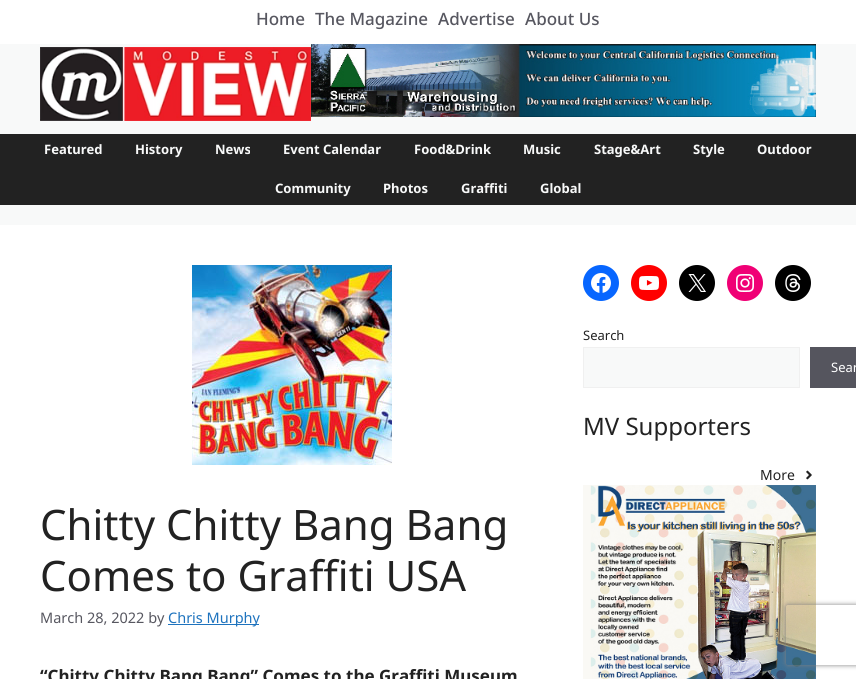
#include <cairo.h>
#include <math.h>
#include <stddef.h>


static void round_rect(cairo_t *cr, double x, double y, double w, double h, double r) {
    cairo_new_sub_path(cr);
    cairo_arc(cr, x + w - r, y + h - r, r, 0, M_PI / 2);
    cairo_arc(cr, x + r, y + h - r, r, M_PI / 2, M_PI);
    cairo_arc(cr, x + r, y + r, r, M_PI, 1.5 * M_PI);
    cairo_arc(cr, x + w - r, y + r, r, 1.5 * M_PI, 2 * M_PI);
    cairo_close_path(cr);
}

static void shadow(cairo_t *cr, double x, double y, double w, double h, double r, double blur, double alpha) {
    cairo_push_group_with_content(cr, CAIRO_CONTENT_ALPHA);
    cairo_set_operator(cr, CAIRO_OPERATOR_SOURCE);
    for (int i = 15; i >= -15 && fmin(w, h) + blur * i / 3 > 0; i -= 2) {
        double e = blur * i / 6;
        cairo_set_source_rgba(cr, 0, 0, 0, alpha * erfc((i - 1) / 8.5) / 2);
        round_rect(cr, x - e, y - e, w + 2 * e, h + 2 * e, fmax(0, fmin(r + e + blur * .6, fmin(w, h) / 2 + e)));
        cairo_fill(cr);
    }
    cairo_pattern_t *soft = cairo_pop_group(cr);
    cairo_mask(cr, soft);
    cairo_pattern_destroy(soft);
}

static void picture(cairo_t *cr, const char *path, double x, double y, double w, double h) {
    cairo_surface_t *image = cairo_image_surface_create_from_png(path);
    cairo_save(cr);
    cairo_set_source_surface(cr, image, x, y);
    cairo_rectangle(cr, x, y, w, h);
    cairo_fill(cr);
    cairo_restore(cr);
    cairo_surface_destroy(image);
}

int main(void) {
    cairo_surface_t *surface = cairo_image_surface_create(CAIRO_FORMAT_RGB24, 856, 679);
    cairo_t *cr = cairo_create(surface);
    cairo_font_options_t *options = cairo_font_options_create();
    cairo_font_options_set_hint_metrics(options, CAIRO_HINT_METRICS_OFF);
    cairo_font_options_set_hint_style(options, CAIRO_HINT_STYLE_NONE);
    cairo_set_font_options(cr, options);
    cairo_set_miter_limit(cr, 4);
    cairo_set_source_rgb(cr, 0.969, 0.973, 0.976);
    cairo_paint(cr);
    cairo_set_source_rgb(cr, 1, 1, 1);
    cairo_rectangle(cr, 0, 0, 856, 44);
    cairo_fill(cr);
    cairo_select_font_face(cr, "Noto Sans Medium", CAIRO_FONT_SLANT_NORMAL, CAIRO_FONT_WEIGHT_NORMAL);
    cairo_set_font_size(cr, 17);
    cairo_set_source_rgb(cr, 0.341, 0.341, 0.376);
    cairo_move_to(cr, 256, 25);
    cairo_show_text(cr, "Home");
    cairo_move_to(cr, 315, 25);
    cairo_show_text(cr, "The Magazine");
    cairo_move_to(cr, 438, 25);
    cairo_show_text(cr, "Advertise");
    cairo_move_to(cr, 525, 25);
    cairo_show_text(cr, "About Us");
    picture(cr, "img1.png", 40, 47, 271, 74);
    picture(cr, "img2.png", 311, 44, 505, 73);
    cairo_set_source_rgb(cr, 0.133, 0.133, 0.133);
    cairo_rectangle(cr, 0, 134, 856, 71);
    cairo_fill(cr);
    cairo_select_font_face(cr, "Noto Sans", CAIRO_FONT_SLANT_NORMAL, CAIRO_FONT_WEIGHT_BOLD);
    cairo_set_font_size(cr, 13);
    cairo_set_source_rgb(cr, 0.969, 0.973, 0.976);
    cairo_move_to(cr, 44, 154);
    cairo_show_text(cr, "Featured");
    cairo_move_to(cr, 135, 154);
    cairo_show_text(cr, "History");
    cairo_move_to(cr, 215, 154);
    cairo_show_text(cr, "News");
    cairo_move_to(cr, 283, 154);
    cairo_show_text(cr, "Event Calendar");
    cairo_move_to(cr, 414, 154);
    cairo_show_text(cr, "Food&Drink");
    cairo_move_to(cr, 523, 154);
    cairo_show_text(cr, "Music");
    cairo_move_to(cr, 594, 154);
    cairo_show_text(cr, "Stage&Art");
    cairo_move_to(cr, 693, 154);
    cairo_show_text(cr, "Style");
    cairo_move_to(cr, 757, 154);
    cairo_show_text(cr, "Outdoor");
    cairo_move_to(cr, 275, 193);
    cairo_show_text(cr, "Community");
    cairo_move_to(cr, 383, 193);
    cairo_show_text(cr, "Photos");
    cairo_move_to(cr, 461, 193);
    cairo_show_text(cr, "Graffiti");
    cairo_move_to(cr, 540, 193);
    cairo_show_text(cr, "Global");
    cairo_set_source_rgb(cr, 1, 1, 1);
    cairo_rectangle(cr, 0, 225, 856, 454);
    cairo_fill(cr);
    cairo_set_source_rgb(cr, 0.031, 0.4, 1);
    cairo_arc(cr, 601, 283, 18, 0, 2 * M_PI);
    cairo_fill(cr);
    picture(cr, "img3.png", 591, 273, 20, 20);
    cairo_set_source_rgb(cr, 1, 0, 0);
    cairo_arc(cr, 649, 283, 18, 0, 2 * M_PI);
    cairo_fill(cr);
    picture(cr, "img4.png", 639, 276, 20, 14);
    cairo_set_source_rgb(cr, 0, 0, 0);
    cairo_arc(cr, 697, 283, 18, 0, 2 * M_PI);
    cairo_fill(cr);
    picture(cr, "img5.png", 688, 274, 18, 18);
    cairo_set_source_rgb(cr, 0.941, 0, 0.459);
    cairo_arc(cr, 745, 283, 18, 0, 2 * M_PI);
    cairo_fill(cr);
    picture(cr, "img6.png", 736, 274, 18, 18);
    cairo_set_source_rgb(cr, 0, 0, 0);
    cairo_arc(cr, 793, 283, 18, 0, 2 * M_PI);
    cairo_fill(cr);
    picture(cr, "img7.png", 785, 274, 16, 18);
    cairo_select_font_face(cr, "Noto Sans", CAIRO_FONT_SLANT_NORMAL, CAIRO_FONT_WEIGHT_NORMAL);
    cairo_set_source_rgb(cr, 0.133, 0.133, 0.133);
    cairo_move_to(cr, 583, 340);
    cairo_show_text(cr, "Search");
    cairo_set_source_rgb(cr, 0.969, 0.973, 0.976);
    cairo_rectangle(cr, 583.5, 347.5, 216, 40);
    cairo_fill_preserve(cr);
    cairo_set_source_rgb(cr, 0.941, 0.941, 0.941);
    cairo_set_line_width(cr, 1);
    cairo_stroke(cr);
    cairo_set_source_rgb(cr, 0.333, 0.333, 0.369);
    cairo_rectangle(cr, 810, 347, 46, 41);
    cairo_fill(cr);
    cairo_set_source_rgb(cr, 1, 1, 1);
    cairo_move_to(cr, 831, 372);
    cairo_show_text(cr, "Sear");
    cairo_set_font_size(cr, 24);
    cairo_set_source_rgb(cr, 0.133, 0.133, 0.133);
    cairo_move_to(cr, 583, 435);
    cairo_show_text(cr, "MV Supporters");
    cairo_set_font_size(cr, 14);
    cairo_move_to(cr, 760, 480);
    cairo_show_text(cr, "More");
    picture(cr, "img8.png", 806, 470, 6, 10);
    picture(cr, "img9.png", 583, 485, 233, 194);
    picture(cr, "img10.png", 192, 265, 200, 200);
    cairo_set_font_size(cr, 42);
    cairo_move_to(cr, 40, 540);
    cairo_show_text(cr, "Chitty Chitty Bang Bang");
    cairo_move_to(cr, 40, 591);
    cairo_show_text(cr, "Comes to Graffiti USA");
    cairo_set_font_size(cr, 14.5);
    cairo_set_source_rgb(cr, 0.341, 0.341, 0.376);
    cairo_move_to(cr, 40, 623);
    cairo_show_text(cr, "March 28, 2022 by");
    cairo_set_source_rgb(cr, 0.118, 0.451, 0.745);
    cairo_rectangle(cr, 168, 624, 91, 1);
    cairo_fill(cr);
    cairo_move_to(cr, 168, 623);
    cairo_show_text(cr, "Chris Murphy");
    cairo_select_font_face(cr, "Noto Sans", CAIRO_FONT_SLANT_NORMAL, CAIRO_FONT_WEIGHT_BOLD);
    cairo_set_font_size(cr, 17);
    cairo_set_source_rgb(cr, 0.133, 0.133, 0.133);
    cairo_move_to(cr, 40, 682);
    cairo_show_text(cr, "“Chitty Chitty Bang Bang” Comes to the Graffiti Museum");
    cairo_save(cr);
    cairo_set_fill_rule(cr, CAIRO_FILL_RULE_EVEN_ODD);
    cairo_new_path(cr);
    cairo_move_to(cr, 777, 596);
    cairo_line_to(cr, 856, 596);
    cairo_line_to(cr, 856, 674);
    cairo_line_to(cr, 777, 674);
    cairo_close_path(cr);
    cairo_move_to(cr, 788, 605);
    cairo_line_to(cr, 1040, 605);
    cairo_curve_to(cr, 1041, 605, 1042, 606, 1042, 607);
    cairo_line_to(cr, 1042, 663);
    cairo_curve_to(cr, 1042, 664, 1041, 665, 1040, 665);
    cairo_line_to(cr, 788, 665);
    cairo_curve_to(cr, 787, 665, 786, 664, 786, 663);
    cairo_line_to(cr, 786, 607);
    cairo_curve_to(cr, 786, 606, 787, 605, 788, 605);
    cairo_close_path(cr);
    cairo_clip(cr);
    cairo_set_source_rgb(cr, 0.502, 0.502, 0.502);
    shadow(cr, 786, 605, 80, 60, 2, 2.5, 1);
    cairo_restore(cr);
    cairo_surface_write_to_png(surface, "page.png");
    cairo_font_options_destroy(options);
    cairo_destroy(cr);
    cairo_surface_destroy(surface);
    return 0;
}
